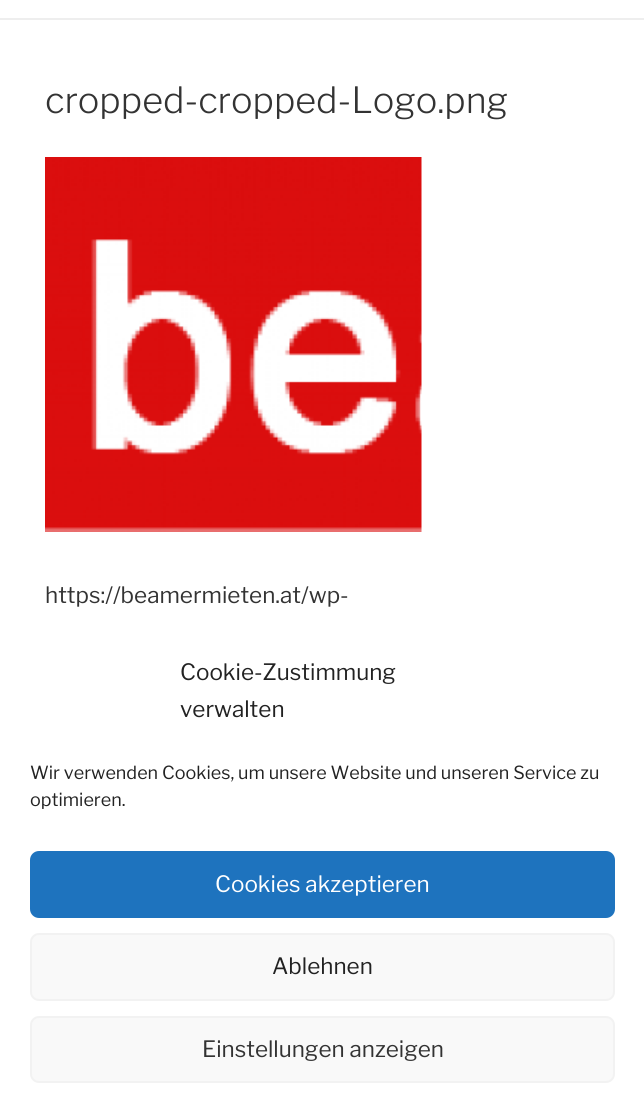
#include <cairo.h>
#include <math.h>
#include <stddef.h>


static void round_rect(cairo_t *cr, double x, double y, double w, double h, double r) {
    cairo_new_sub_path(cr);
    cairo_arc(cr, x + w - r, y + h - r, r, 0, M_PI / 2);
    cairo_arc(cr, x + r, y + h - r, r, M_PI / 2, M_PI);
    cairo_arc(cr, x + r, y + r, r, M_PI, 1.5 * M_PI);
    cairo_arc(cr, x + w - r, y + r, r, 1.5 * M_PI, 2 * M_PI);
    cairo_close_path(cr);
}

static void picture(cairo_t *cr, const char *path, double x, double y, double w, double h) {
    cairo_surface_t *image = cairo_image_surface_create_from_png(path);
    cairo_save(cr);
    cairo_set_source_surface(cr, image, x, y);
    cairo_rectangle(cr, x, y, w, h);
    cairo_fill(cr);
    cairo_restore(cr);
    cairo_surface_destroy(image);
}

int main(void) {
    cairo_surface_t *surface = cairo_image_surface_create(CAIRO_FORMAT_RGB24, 644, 1120);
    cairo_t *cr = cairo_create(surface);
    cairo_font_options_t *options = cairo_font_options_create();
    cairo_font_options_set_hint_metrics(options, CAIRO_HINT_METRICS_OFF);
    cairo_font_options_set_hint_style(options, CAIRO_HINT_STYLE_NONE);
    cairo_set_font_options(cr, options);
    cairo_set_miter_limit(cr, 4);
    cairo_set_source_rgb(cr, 1, 1, 1);
    cairo_paint(cr);
    cairo_set_source_rgb(cr, 0.933, 0.933, 0.933);
    cairo_rectangle(cr, 0, 18, 644, 2);
    cairo_fill(cr);
    cairo_select_font_face(cr, "Libre Franklin Thin", CAIRO_FONT_SLANT_NORMAL, CAIRO_FONT_WEIGHT_NORMAL);
    cairo_set_font_size(cr, 36);
    cairo_set_source_rgb(cr, 0.2, 0.2, 0.2);
    cairo_move_to(cr, 45, 113);
    cairo_show_text(cr, "cropped-cropped-Logo.png");
    picture(cr, "img1.png", 45, 157, 377, 375);
    cairo_select_font_face(cr, "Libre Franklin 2 Thin", CAIRO_FONT_SLANT_NORMAL, CAIRO_FONT_WEIGHT_NORMAL);
    cairo_set_font_size(cr, 22.5);
    cairo_move_to(cr, 45, 603);
    cairo_show_text(cr, "https://beamermieten.at/wp-");
    cairo_set_source_rgb(cr, 0.133, 0.133, 0.133);
    cairo_move_to(cr, 180, 680);
    cairo_show_text(cr, "Cookie-Zustimmung");
    cairo_move_to(cr, 180, 717);
    cairo_show_text(cr, "verwalten");
    cairo_set_font_size(cr, 18);
    cairo_move_to(cr, 30, 779);
    cairo_show_text(cr, "Wir verwenden Cookies, um unsere Website und unseren Service zu");
    cairo_move_to(cr, 30, 806);
    cairo_show_text(cr, "optimieren.");
    cairo_set_source_rgb(cr, 0.118, 0.451, 0.745);
    round_rect(cr, 31, 852, 583, 65, 8);
    cairo_fill_preserve(cr);
    cairo_stroke(cr);
    cairo_set_font_size(cr, 22.5);
    cairo_set_source_rgb(cr, 1, 1, 1);
    cairo_move_to(cr, 215, 892);
    cairo_show_text(cr, "Cookies akzeptieren");
    cairo_set_source_rgb(cr, 0.976, 0.976, 0.976);
    round_rect(cr, 31, 934, 583, 66, 8);
    cairo_fill_preserve(cr);
    cairo_set_source_rgb(cr, 0.949, 0.949, 0.949);
    cairo_stroke(cr);
    cairo_set_source_rgb(cr, 0.133, 0.133, 0.133);
    cairo_move_to(cr, 272, 974);
    cairo_show_text(cr, "Ablehnen");
    cairo_set_source_rgb(cr, 0.976, 0.976, 0.976);
    round_rect(cr, 31, 1017, 583, 65, 8);
    cairo_fill_preserve(cr);
    cairo_set_source_rgb(cr, 0.949, 0.949, 0.949);
    cairo_stroke(cr);
    cairo_set_source_rgb(cr, 0.2, 0.2, 0.2);
    cairo_move_to(cr, 202, 1057);
    cairo_show_text(cr, "Einstellungen anzeigen");
    cairo_surface_write_to_png(surface, "page.png");
    cairo_font_options_destroy(options);
    cairo_destroy(cr);
    cairo_surface_destroy(surface);
    return 0;
}
